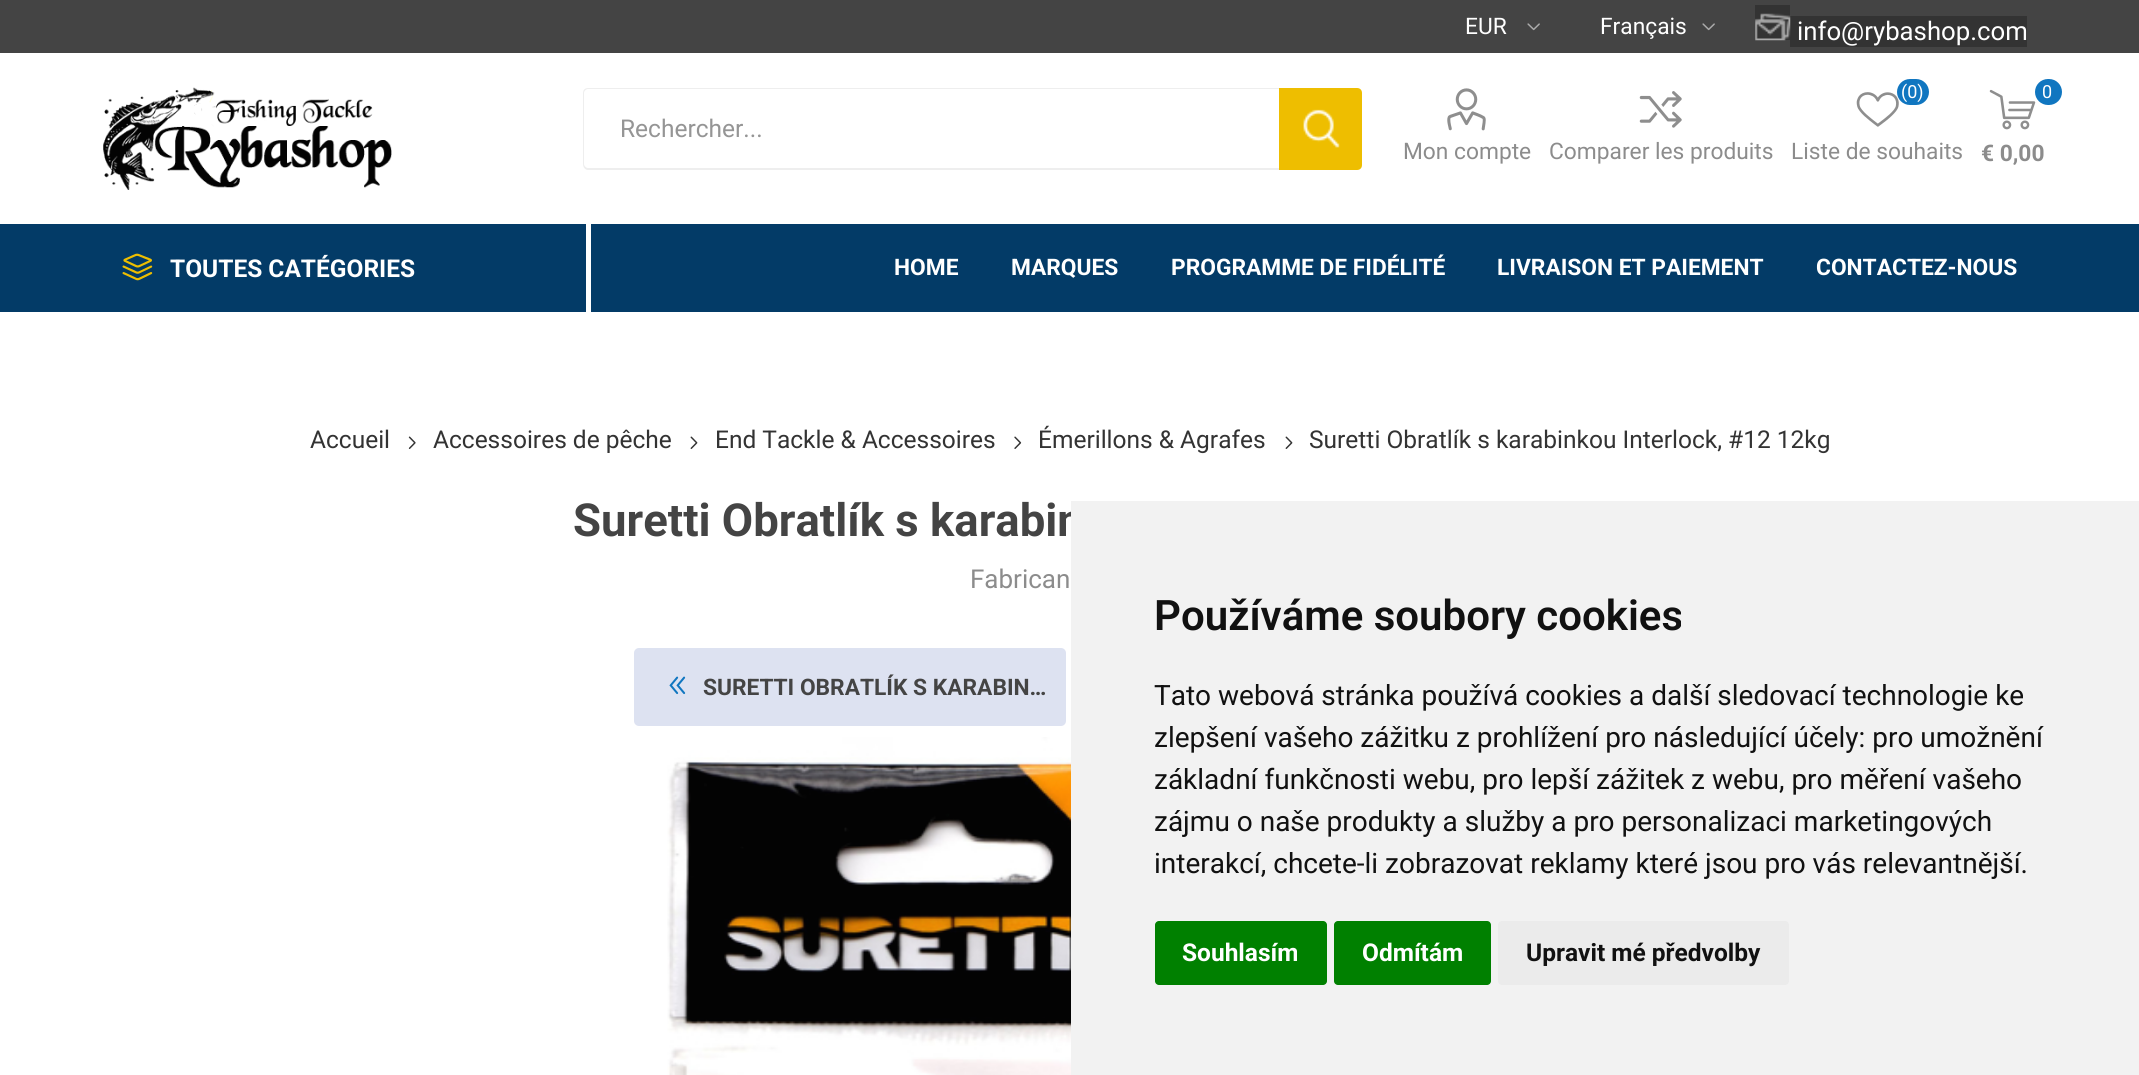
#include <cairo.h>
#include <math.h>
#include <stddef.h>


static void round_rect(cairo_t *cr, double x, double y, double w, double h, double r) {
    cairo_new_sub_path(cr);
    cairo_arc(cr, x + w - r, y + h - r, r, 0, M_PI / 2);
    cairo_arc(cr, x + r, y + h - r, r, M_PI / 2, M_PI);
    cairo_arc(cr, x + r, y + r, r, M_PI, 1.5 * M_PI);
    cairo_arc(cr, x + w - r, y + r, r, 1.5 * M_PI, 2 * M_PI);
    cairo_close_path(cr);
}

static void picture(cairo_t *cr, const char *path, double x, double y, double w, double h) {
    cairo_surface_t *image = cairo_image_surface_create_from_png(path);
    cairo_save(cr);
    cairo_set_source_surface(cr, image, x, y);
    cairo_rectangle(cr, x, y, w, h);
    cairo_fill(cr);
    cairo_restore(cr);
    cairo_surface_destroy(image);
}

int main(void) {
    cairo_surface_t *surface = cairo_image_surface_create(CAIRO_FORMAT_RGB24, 2139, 1075);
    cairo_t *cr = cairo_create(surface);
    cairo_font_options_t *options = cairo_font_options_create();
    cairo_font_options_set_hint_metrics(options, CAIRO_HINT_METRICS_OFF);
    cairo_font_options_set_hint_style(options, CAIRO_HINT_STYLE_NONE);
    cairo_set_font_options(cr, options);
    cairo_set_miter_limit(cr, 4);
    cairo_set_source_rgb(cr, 1, 1, 1);
    cairo_paint(cr);
    cairo_set_source_rgb(cr, 0.267, 0.267, 0.267);
    cairo_rectangle(cr, 0, 0, 2139, 53);
    cairo_fill(cr);
    cairo_select_font_face(cr, "Roboto", CAIRO_FONT_SLANT_NORMAL, CAIRO_FONT_WEIGHT_NORMAL);
    cairo_set_font_size(cr, 22.75);
    cairo_set_source_rgb(cr, 1, 1, 1);
    cairo_move_to(cr, 1465, 34);
    cairo_show_text(cr, "EUR");
    picture(cr, "img1.png", 1527, 23, 13, 8);
    cairo_move_to(cr, 1600, 34);
    cairo_show_text(cr, "Français");
    picture(cr, "img1.png", 1702, 23, 13, 8);
    cairo_set_source_rgb(cr, 0.2, 0.2, 0.2);
    cairo_rectangle(cr, 1755, 5, 35, 35);
    cairo_fill(cr);
    cairo_rectangle(cr, 1790, 16, 237, 31);
    cairo_fill(cr);
    picture(cr, "img2.png", 1755, 13, 36, 28);
    cairo_set_font_size(cr, 25.75);
    cairo_set_source_rgb(cr, 1, 1, 1);
    cairo_move_to(cr, 1797, 40);
    cairo_show_text(cr, "info@rybashop.com");
    picture(cr, "img3.png", 103, 87, 289, 103);
    cairo_set_source_rgb(cr, 0.933, 0.933, 0.933);
    cairo_set_fill_rule(cr, CAIRO_FILL_RULE_EVEN_ODD);
    cairo_new_path(cr);
    cairo_move_to(cr, 588, 88);
    cairo_line_to(cr, 1279, 88);
    cairo_line_to(cr, 1279, 170);
    cairo_line_to(cr, 588, 170);
    cairo_curve_to(cr, 585, 170, 583, 167, 583, 164);
    cairo_line_to(cr, 583, 93);
    cairo_curve_to(cr, 583, 90, 585, 88, 588, 88);
    cairo_close_path(cr);
    cairo_move_to(cr, 588, 89);
    cairo_line_to(cr, 1279, 89);
    cairo_line_to(cr, 1279, 168);
    cairo_line_to(cr, 588, 168);
    cairo_curve_to(cr, 586, 168, 584, 166, 584, 164);
    cairo_line_to(cr, 584, 93);
    cairo_curve_to(cr, 584, 91, 586, 89, 588, 89);
    cairo_close_path(cr);
    cairo_fill(cr);
    cairo_set_font_size(cr, 24.5);
    cairo_set_source_rgb(cr, 0.584, 0.584, 0.584);
    cairo_move_to(cr, 620, 137);
    cairo_show_text(cr, "Rechercher...");
    cairo_set_source_rgb(cr, 0.933, 0.745, 0);
    cairo_new_path(cr);
    cairo_move_to(cr, 1279, 88);
    cairo_line_to(cr, 1357, 88);
    cairo_curve_to(cr, 1360, 88, 1362, 90, 1362, 93);
    cairo_line_to(cr, 1362, 165);
    cairo_curve_to(cr, 1362, 168, 1360, 170, 1357, 170);
    cairo_line_to(cr, 1279, 170);
    cairo_close_path(cr);
    cairo_fill(cr);
    picture(cr, "img4.png", 1303, 109, 37, 39);
    picture(cr, "img5.png", 1447, 88, 39, 43);
    cairo_set_font_size(cr, 22.75);
    cairo_set_source_rgb(cr, 0.549, 0.549, 0.549);
    cairo_move_to(cr, 1403, 159);
    cairo_show_text(cr, "Mon compte");
    picture(cr, "img6.png", 1639, 91, 43, 37);
    cairo_move_to(cr, 1549, 159);
    cairo_show_text(cr, "Comparer les produits");
    picture(cr, "img7.png", 1856, 92, 43, 35);
    cairo_set_source_rgb(cr, 0.063, 0.463, 0.753);
    round_rect(cr, 1897, 79, 32, 26, 13);
    cairo_fill(cr);
    cairo_set_font_size(cr, 18);
    cairo_set_source_rgb(cr, 1, 1, 1);
    cairo_move_to(cr, 1901, 98);
    cairo_show_text(cr, "(0)");
    cairo_set_font_size(cr, 22.75);
    cairo_set_source_rgb(cr, 0.549, 0.549, 0.549);
    cairo_move_to(cr, 1791, 159);
    cairo_show_text(cr, "Liste de souhaits");
    picture(cr, "img8.png", 1989, 89, 47, 41);
    cairo_set_source_rgb(cr, 0.063, 0.463, 0.753);
    round_rect(cr, 2035, 79, 27, 26, 13);
    cairo_fill(cr);
    cairo_set_font_size(cr, 18);
    cairo_set_source_rgb(cr, 1, 1, 1);
    cairo_move_to(cr, 2042, 98);
    cairo_show_text(cr, "0");
    cairo_select_font_face(cr, "Roboto", CAIRO_FONT_SLANT_NORMAL, CAIRO_FONT_WEIGHT_BOLD);
    cairo_set_font_size(cr, 22.75);
    cairo_set_source_rgb(cr, 0.549, 0.549, 0.549);
    cairo_move_to(cr, 1981, 161);
    cairo_show_text(cr, "€ 0,00");
    cairo_set_source_rgb(cr, 0.012, 0.231, 0.404);
    cairo_rectangle(cr, 0, 224, 2139, 88);
    cairo_fill(cr);
    cairo_set_source_rgb(cr, 1, 1, 1);
    cairo_rectangle(cr, 586, 224, 5, 88);
    cairo_fill(cr);
    picture(cr, "img9.png", 122, 253, 31, 28);
    cairo_set_font_size(cr, 24.5);
    cairo_move_to(cr, 170, 277);
    cairo_show_text(cr, "TOUTES CATÉGORIES");
    cairo_set_font_size(cr, 22.75);
    cairo_move_to(cr, 894, 275);
    cairo_show_text(cr, "HOME");
    cairo_move_to(cr, 1011, 275);
    cairo_show_text(cr, "MARQUES");
    cairo_move_to(cr, 1171, 275);
    cairo_show_text(cr, "PROGRAMME DE FIDÉLITÉ");
    cairo_move_to(cr, 1497, 275);
    cairo_show_text(cr, "LIVRAISON ET PAIEMENT");
    cairo_move_to(cr, 1816, 275);
    cairo_show_text(cr, "CONTACTEZ-NOUS");
    cairo_select_font_face(cr, "Roboto", CAIRO_FONT_SLANT_NORMAL, CAIRO_FONT_WEIGHT_NORMAL);
    cairo_set_font_size(cr, 24.5);
    cairo_set_source_rgb(cr, 0.2, 0.2, 0.2);
    cairo_move_to(cr, 310, 448);
    cairo_show_text(cr, "Accueil");
    picture(cr, "img10.png", 408, 436, 8, 13);
    cairo_move_to(cr, 433, 448);
    cairo_show_text(cr, "Accessoires de pêche");
    picture(cr, "img11.png", 690, 436, 8, 13);
    cairo_move_to(cr, 715, 448);
    cairo_show_text(cr, "End Tackle & Accessoires");
    picture(cr, "img12.png", 1014, 436, 8, 13);
    cairo_move_to(cr, 1038, 448);
    cairo_show_text(cr, "Émerillons & Agrafes");
    picture(cr, "img11.png", 1285, 436, 8, 13);
    cairo_move_to(cr, 1309, 448);
    cairo_show_text(cr, "Suretti Obratlík s karabinkou Interlock, #12 12kg");
    cairo_select_font_face(cr, "Roboto", CAIRO_FONT_SLANT_NORMAL, CAIRO_FONT_WEIGHT_BOLD);
    cairo_set_font_size(cr, 45.5);
    cairo_set_source_rgb(cr, 0.267, 0.267, 0.267);
    cairo_move_to(cr, 573, 536);
    cairo_show_text(cr, "Suretti Obratlík s karabin");
    cairo_select_font_face(cr, "Roboto", CAIRO_FONT_SLANT_NORMAL, CAIRO_FONT_WEIGHT_NORMAL);
    cairo_set_font_size(cr, 26);
    cairo_set_source_rgb(cr, 0.549, 0.549, 0.549);
    cairo_move_to(cr, 970, 588);
    cairo_show_text(cr, "Fabrican");
    cairo_set_source_rgb(cr, 0.867, 0.886, 0.945);
    round_rect(cr, 634, 648, 432, 78, 5);
    cairo_fill(cr);
    picture(cr, "img13.png", 669, 676, 17, 19);
    cairo_select_font_face(cr, "Roboto", CAIRO_FONT_SLANT_NORMAL, CAIRO_FONT_WEIGHT_BOLD);
    cairo_set_font_size(cr, 22.75);
    cairo_set_source_rgb(cr, 0.267, 0.267, 0.267);
    cairo_move_to(cr, 703, 695);
    cairo_show_text(cr, "SURETTI OBRATLÍK S KARABIN…");
    picture(cr, "img14.png", 667, 737, 404, 338);
    cairo_set_source_rgb(cr, 0.949, 0.949, 0.949);
    cairo_rectangle(cr, 1071, 501, 1068, 574);
    cairo_fill(cr);
    cairo_select_font_face(cr, "Roboto SemiBold", CAIRO_FONT_SLANT_NORMAL, CAIRO_FONT_WEIGHT_NORMAL);
    cairo_set_font_size(cr, 42);
    cairo_set_source_rgb(cr, 0.067, 0.067, 0.067);
    cairo_move_to(cr, 1154, 630);
    cairo_show_text(cr, "Používáme soubory cookies");
    cairo_select_font_face(cr, "Roboto", CAIRO_FONT_SLANT_NORMAL, CAIRO_FONT_WEIGHT_NORMAL);
    cairo_set_font_size(cr, 28);
    cairo_move_to(cr, 1154, 705);
    cairo_show_text(cr, "Tato webová stránka používá cookies a další sledovací technologie ke");
    cairo_move_to(cr, 1154, 747);
    cairo_show_text(cr, "zlepšení vašeho zážitku z prohlížení pro následující účely: pro umožnění");
    cairo_move_to(cr, 1154, 789);
    cairo_show_text(cr, "základní funkčnosti webu, pro lepší zážitek z webu, pro měření vašeho");
    cairo_move_to(cr, 1154, 831);
    cairo_show_text(cr, "zájmu o naše produkty a služby a pro personalizaci marketingových");
    cairo_move_to(cr, 1154, 873);
    cairo_show_text(cr, "interakcí, chcete-li zobrazovat reklamy které jsou pro vás relevantnější.");
    cairo_set_source_rgb(cr, 0, 0.502, 0);
    round_rect(cr, 1155, 921, 172, 64, 4);
    cairo_fill(cr);
    cairo_select_font_face(cr, "Roboto", CAIRO_FONT_SLANT_NORMAL, CAIRO_FONT_WEIGHT_BOLD);
    cairo_set_font_size(cr, 24.5);
    cairo_set_source_rgb(cr, 1, 1, 1);
    cairo_move_to(cr, 1182, 961);
    cairo_show_text(cr, "Souhlasím");
    cairo_set_source_rgb(cr, 0, 0.502, 0);
    round_rect(cr, 1334, 921, 157, 64, 4);
    cairo_fill(cr);
    cairo_set_source_rgb(cr, 1, 1, 1);
    cairo_move_to(cr, 1362, 961);
    cairo_show_text(cr, "Odmítám");
    cairo_set_source_rgb(cr, 0.918, 0.918, 0.918);
    round_rect(cr, 1498, 921, 291, 64, 4);
    cairo_fill(cr);
    cairo_set_source_rgb(cr, 0.067, 0.067, 0.067);
    cairo_move_to(cr, 1526, 961);
    cairo_show_text(cr, "Upravit mé předvolby");
    cairo_surface_write_to_png(surface, "page.png");
    cairo_font_options_destroy(options);
    cairo_destroy(cr);
    cairo_surface_destroy(surface);
    return 0;
}
